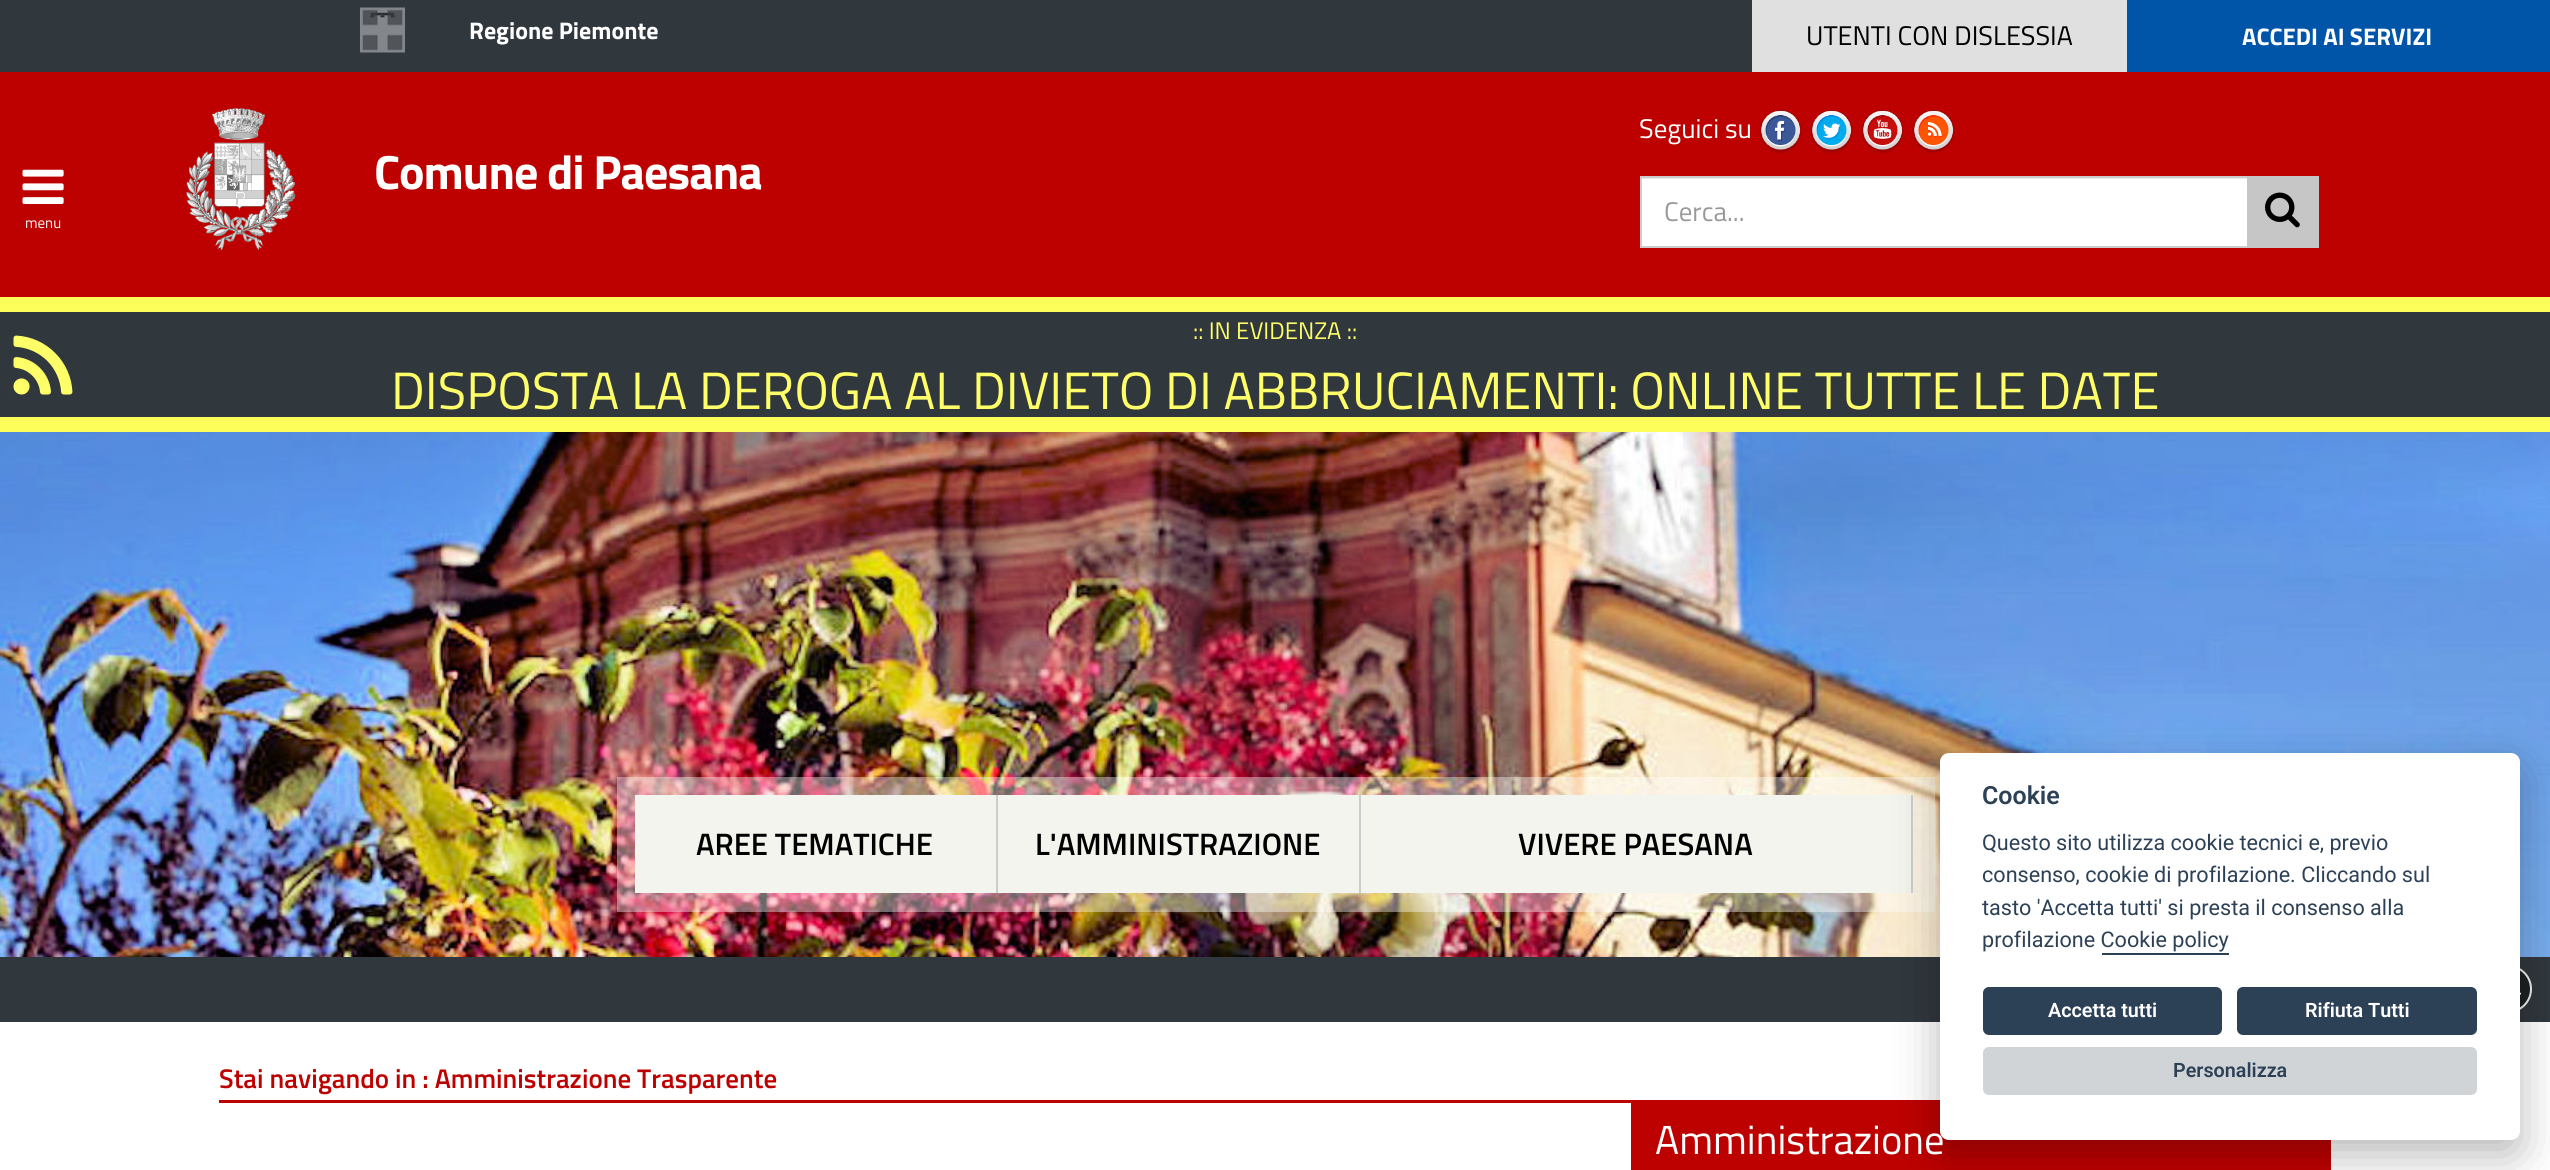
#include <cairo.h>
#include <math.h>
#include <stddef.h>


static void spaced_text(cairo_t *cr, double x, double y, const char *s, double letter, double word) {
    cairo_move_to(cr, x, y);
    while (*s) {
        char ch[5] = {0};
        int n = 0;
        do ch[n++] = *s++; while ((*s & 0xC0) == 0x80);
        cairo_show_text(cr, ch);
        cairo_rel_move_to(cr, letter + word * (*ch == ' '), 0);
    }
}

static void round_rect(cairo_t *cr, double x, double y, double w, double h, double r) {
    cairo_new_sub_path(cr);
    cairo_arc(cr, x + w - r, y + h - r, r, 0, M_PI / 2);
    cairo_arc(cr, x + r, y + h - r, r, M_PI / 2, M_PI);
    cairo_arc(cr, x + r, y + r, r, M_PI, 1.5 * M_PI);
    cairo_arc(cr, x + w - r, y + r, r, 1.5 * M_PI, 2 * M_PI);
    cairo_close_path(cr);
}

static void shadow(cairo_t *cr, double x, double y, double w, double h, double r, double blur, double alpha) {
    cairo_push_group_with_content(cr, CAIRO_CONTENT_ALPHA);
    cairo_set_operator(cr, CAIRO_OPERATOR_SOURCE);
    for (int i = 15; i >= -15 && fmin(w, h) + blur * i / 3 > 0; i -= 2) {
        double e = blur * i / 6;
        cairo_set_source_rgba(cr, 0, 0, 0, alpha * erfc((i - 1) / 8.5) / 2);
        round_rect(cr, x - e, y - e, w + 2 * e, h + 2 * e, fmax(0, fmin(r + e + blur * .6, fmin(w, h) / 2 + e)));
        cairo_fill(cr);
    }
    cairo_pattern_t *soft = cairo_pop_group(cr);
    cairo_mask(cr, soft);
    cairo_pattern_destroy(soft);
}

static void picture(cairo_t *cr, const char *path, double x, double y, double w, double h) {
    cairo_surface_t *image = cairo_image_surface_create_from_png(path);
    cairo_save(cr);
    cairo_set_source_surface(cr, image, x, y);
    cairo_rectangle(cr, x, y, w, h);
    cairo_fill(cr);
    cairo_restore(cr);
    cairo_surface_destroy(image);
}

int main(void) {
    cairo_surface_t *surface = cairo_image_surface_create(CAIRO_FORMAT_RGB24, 2550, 1170);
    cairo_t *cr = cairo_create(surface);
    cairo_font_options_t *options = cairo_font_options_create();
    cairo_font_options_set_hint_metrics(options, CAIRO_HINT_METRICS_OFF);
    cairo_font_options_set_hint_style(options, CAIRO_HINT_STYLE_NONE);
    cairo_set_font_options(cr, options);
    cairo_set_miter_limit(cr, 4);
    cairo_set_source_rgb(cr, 0.741, 0.004, 0);
    cairo_paint(cr);
    cairo_set_source_rgb(cr, 0.188, 0.216, 0.239);
    cairo_rectangle(cr, 0, 0, 1752, 72);
    cairo_fill(cr);
    picture(cr, "img1.png", 360, 7, 45, 46);
    cairo_select_font_face(cr, "Titillium Web", CAIRO_FONT_SLANT_NORMAL, CAIRO_FONT_WEIGHT_BOLD);
    cairo_set_font_size(cr, 24);
    cairo_set_source_rgb(cr, 1, 1, 1);
    cairo_move_to(cr, 469, 39);
    cairo_show_text(cr, "Regione Piemonte");
    cairo_set_source_rgb(cr, 0, 0.333, 0.663);
    cairo_rectangle(cr, 2127, 0, 423, 72);
    cairo_fill(cr);
    cairo_set_source_rgb(cr, 1, 1, 1);
    cairo_move_to(cr, 2242, 45);
    cairo_show_text(cr, "ACCEDI AI SERVIZI");
    cairo_set_source_rgb(cr, 0.878, 0.878, 0.878);
    cairo_rectangle(cr, 1752, 0, 375, 72);
    cairo_fill(cr);
    cairo_select_font_face(cr, "Titillium Web", CAIRO_FONT_SLANT_NORMAL, CAIRO_FONT_WEIGHT_NORMAL);
    cairo_set_font_size(cr, 27);
    cairo_set_source_rgb(cr, 0, 0, 0);
    cairo_move_to(cr, 1806, 45);
    cairo_show_text(cr, "UTENTI CON DISLESSIA");
    picture(cr, "img2.png", 186, 108, 110, 143);
    cairo_select_font_face(cr, "Titillium Web", CAIRO_FONT_SLANT_NORMAL, CAIRO_FONT_WEIGHT_BOLD);
    cairo_set_font_size(cr, 48);
    cairo_set_source_rgb(cr, 1, 1, 1);
    spaced_text(cr, 374, 189, "Comune di Paesana", -1, 0);
    cairo_select_font_face(cr, "Titillium Web", CAIRO_FONT_SLANT_NORMAL, CAIRO_FONT_WEIGHT_NORMAL);
    cairo_set_font_size(cr, 27);
    cairo_move_to(cr, 1639, 138);
    cairo_show_text(cr, "Seguici su");
    picture(cr, "img3.png", 1759, 110, 43, 44);
    picture(cr, "img4.png", 1810, 110, 43, 44);
    picture(cr, "img5.png", 1861, 110, 43, 44);
    picture(cr, "img6.png", 1912, 110, 43, 44);
    cairo_rectangle(cr, 1642, 179, 605, 67);
    cairo_fill(cr);
    cairo_set_source_rgb(cr, 0.925, 0.925, 0.925);
    cairo_rectangle(cr, 1641, 178, 606, 1);
    cairo_fill(cr);
    cairo_rectangle(cr, 1641, 177, 677, 70);
    cairo_set_source_rgb(cr, 0.8, 0.8, 0.8);
    cairo_stroke(cr);
    cairo_set_source_rgb(cr, 0.6, 0.6, 0.6);
    cairo_move_to(cr, 1664, 221);
    cairo_show_text(cr, "Cerca...");
    cairo_set_source_rgb(cr, 0.776, 0.776, 0.776);
    cairo_rectangle(cr, 2247, 176, 72, 72);
    cairo_fill(cr);
    picture(cr, "img7.png", 2265, 192, 35, 36);
    picture(cr, "img8.png", 22, 169, 42, 35);
    cairo_set_font_size(cr, 15);
    cairo_set_source_rgb(cr, 1, 1, 1);
    cairo_move_to(cr, 25, 228);
    cairo_show_text(cr, "menu");
    picture(cr, "img9.png", 0, 432, 2550, 525);
    cairo_set_source_rgb(cr, 0.188, 0.216, 0.239);
    cairo_rectangle(cr, 0, 312, 2550, 105);
    cairo_fill(cr);
    cairo_set_source_rgb(cr, 0.996, 0.996, 0.357);
    cairo_rectangle(cr, 0, 297, 2550, 15);
    cairo_fill(cr);
    cairo_rectangle(cr, 0, 417, 2550, 15);
    cairo_fill(cr);
    cairo_set_font_size(cr, 24);
    cairo_set_source_rgb(cr, 0.996, 0.996, 0.412);
    cairo_move_to(cr, 1193, 339);
    cairo_show_text(cr, ":: IN EVIDENZA ::");
    picture(cr, "img10.png", 13, 335, 60, 60);
    cairo_set_font_size(cr, 52.5);
    cairo_move_to(cr, 391, 409);
    cairo_show_text(cr, "DISPOSTA LA DEROGA AL DIVIETO DI ABBRUCIAMENTI: ONLINE TUTTE LE DATE");
    cairo_set_source_rgba(cr, 1, 1, 1, 0.4);
    cairo_rectangle(cr, 617, 777, 1318, 135);
    cairo_fill(cr);
    cairo_set_source_rgb(cr, 0.957, 0.957, 0.937);
    cairo_rectangle(cr, 635, 795, 361, 98);
    cairo_fill(cr);
    cairo_set_source_rgb(cr, 0.8, 0.8, 0.8);
    cairo_rectangle(cr, 996, 795, 2, 98);
    cairo_fill(cr);
    cairo_select_font_face(cr, "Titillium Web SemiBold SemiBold", CAIRO_FONT_SLANT_NORMAL, CAIRO_FONT_WEIGHT_NORMAL);
    cairo_set_font_size(cr, 31);
    cairo_set_source_rgb(cr, 0, 0, 0);
    cairo_move_to(cr, 696, 855);
    cairo_show_text(cr, "AREE TEMATICHE");
    cairo_set_source_rgb(cr, 0.957, 0.957, 0.937);
    cairo_rectangle(cr, 998, 795, 361, 98);
    cairo_fill(cr);
    cairo_set_source_rgb(cr, 0.8, 0.8, 0.8);
    cairo_rectangle(cr, 1359, 795, 2, 98);
    cairo_fill(cr);
    cairo_set_source_rgb(cr, 0, 0, 0);
    cairo_move_to(cr, 1035, 855);
    cairo_show_text(cr, "L'AMMINISTRAZIONE");
    cairo_set_source_rgb(cr, 0.957, 0.957, 0.937);
    cairo_rectangle(cr, 1361, 795, 550, 98);
    cairo_fill(cr);
    cairo_set_source_rgb(cr, 0.8, 0.8, 0.8);
    cairo_rectangle(cr, 1911, 795, 2, 98);
    cairo_fill(cr);
    cairo_set_source_rgb(cr, 0, 0, 0);
    cairo_move_to(cr, 1518, 855);
    cairo_show_text(cr, "VIVERE PAESANA");
    cairo_set_source_rgb(cr, 1, 1, 1);
    cairo_rectangle(cr, 0, 1022, 2550, 148);
    cairo_fill(cr);
    cairo_set_source_rgb(cr, 0.188, 0.216, 0.239);
    cairo_rectangle(cr, 0, 957, 2550, 65);
    cairo_fill(cr);
    cairo_set_source_rgb(cr, 0.11, 0.125, 0.141);
    cairo_arc(cr, 2508, 989, 23, 0, 2 * M_PI);
    cairo_fill_preserve(cr);
    cairo_set_source_rgb(cr, 0.949, 0.949, 0.949);
    cairo_stroke(cr);
    picture(cr, "img11.png", 2520, 992, 2, 3);
    cairo_set_source_rgb(cr, 0.741, 0.004, 0);
    cairo_rectangle(cr, 219, 1100, 1721, 3);
    cairo_fill(cr);
    cairo_rectangle(cr, 1631, 1103, 700, 67);
    cairo_fill(cr);
    cairo_set_source_rgb(cr, 0.996, 0.988, 0.988);
    cairo_arc(cr, 2540, 1155, 3, 0, 2 * M_PI);
    cairo_fill(cr);
    cairo_set_source_rgb(cr, 0.008, 0.008, 0.012);
    shadow(cr, 1940, 768, 580, 387, 9, 22.5, 0.28);
    cairo_set_source_rgb(cr, 1, 1, 1);
    round_rect(cr, 1940, 753, 580, 387, 9);
    cairo_fill(cr);
    cairo_select_font_face(cr, "Roboto SemiBold", CAIRO_FONT_SLANT_NORMAL, CAIRO_FONT_WEIGHT_NORMAL);
    cairo_set_font_size(cr, 25);
    cairo_set_source_rgb(cr, 0.176, 0.255, 0.337);
    cairo_move_to(cr, 1982, 804);
    cairo_show_text(cr, "Cookie");
    cairo_select_font_face(cr, "Roboto", CAIRO_FONT_SLANT_NORMAL, CAIRO_FONT_WEIGHT_NORMAL);
    cairo_set_font_size(cr, 21.6);
    cairo_move_to(cr, 1982, 850);
    cairo_show_text(cr, "Questo sito utilizza cookie tecnici e, previo");
    cairo_move_to(cr, 1982, 882);
    cairo_show_text(cr, "consenso, cookie di profilazione. Cliccando sul");
    cairo_move_to(cr, 1982, 915);
    cairo_show_text(cr, "tasto 'Accetta tutti' si presta il consenso alla");
    cairo_move_to(cr, 1982, 947);
    cairo_show_text(cr, "profilazione Cookie policy");
    cairo_rectangle(cr, 2102, 953, 127, 2);
    cairo_fill(cr);
    round_rect(cr, 1983, 987, 239, 48, 6);
    cairo_fill(cr);
    cairo_select_font_face(cr, "Roboto SemiBold", CAIRO_FONT_SLANT_NORMAL, CAIRO_FONT_WEIGHT_NORMAL);
    cairo_set_font_size(cr, 19.75);
    cairo_set_source_rgb(cr, 1, 1, 1);
    cairo_move_to(cr, 2048, 1017);
    cairo_show_text(cr, "Accetta tutti");
    cairo_set_source_rgb(cr, 0.176, 0.255, 0.337);
    round_rect(cr, 2237, 987, 240, 48, 6);
    cairo_fill(cr);
    cairo_set_source_rgb(cr, 1, 1, 1);
    cairo_move_to(cr, 2305, 1017);
    cairo_show_text(cr, "Rifiuta Tutti");
    cairo_set_source_rgb(cr, 0.816, 0.831, 0.843);
    round_rect(cr, 1983, 1047, 494, 48, 6);
    cairo_fill(cr);
    cairo_set_source_rgb(cr, 0.176, 0.255, 0.337);
    cairo_move_to(cr, 2173, 1077);
    cairo_show_text(cr, "Personalizza");
    cairo_select_font_face(cr, "Titillium Web SemiBold SemiBold", CAIRO_FONT_SLANT_NORMAL, CAIRO_FONT_WEIGHT_NORMAL);
    cairo_set_font_size(cr, 27);
    cairo_set_source_rgb(cr, 0.741, 0.004, 0);
    cairo_move_to(cr, 219, 1088);
    cairo_show_text(cr, "Stai navigando in : Amministrazione Trasparente");
    cairo_select_font_face(cr, "Titillium Web", CAIRO_FONT_SLANT_NORMAL, CAIRO_FONT_WEIGHT_NORMAL);
    cairo_set_font_size(cr, 40.5);
    cairo_set_source_rgb(cr, 1, 1, 1);
    cairo_move_to(cr, 1655, 1154);
    cairo_show_text(cr, "Amministrazione");
    cairo_surface_write_to_png(surface, "page.png");
    cairo_font_options_destroy(options);
    cairo_destroy(cr);
    cairo_surface_destroy(surface);
    return 0;
}
